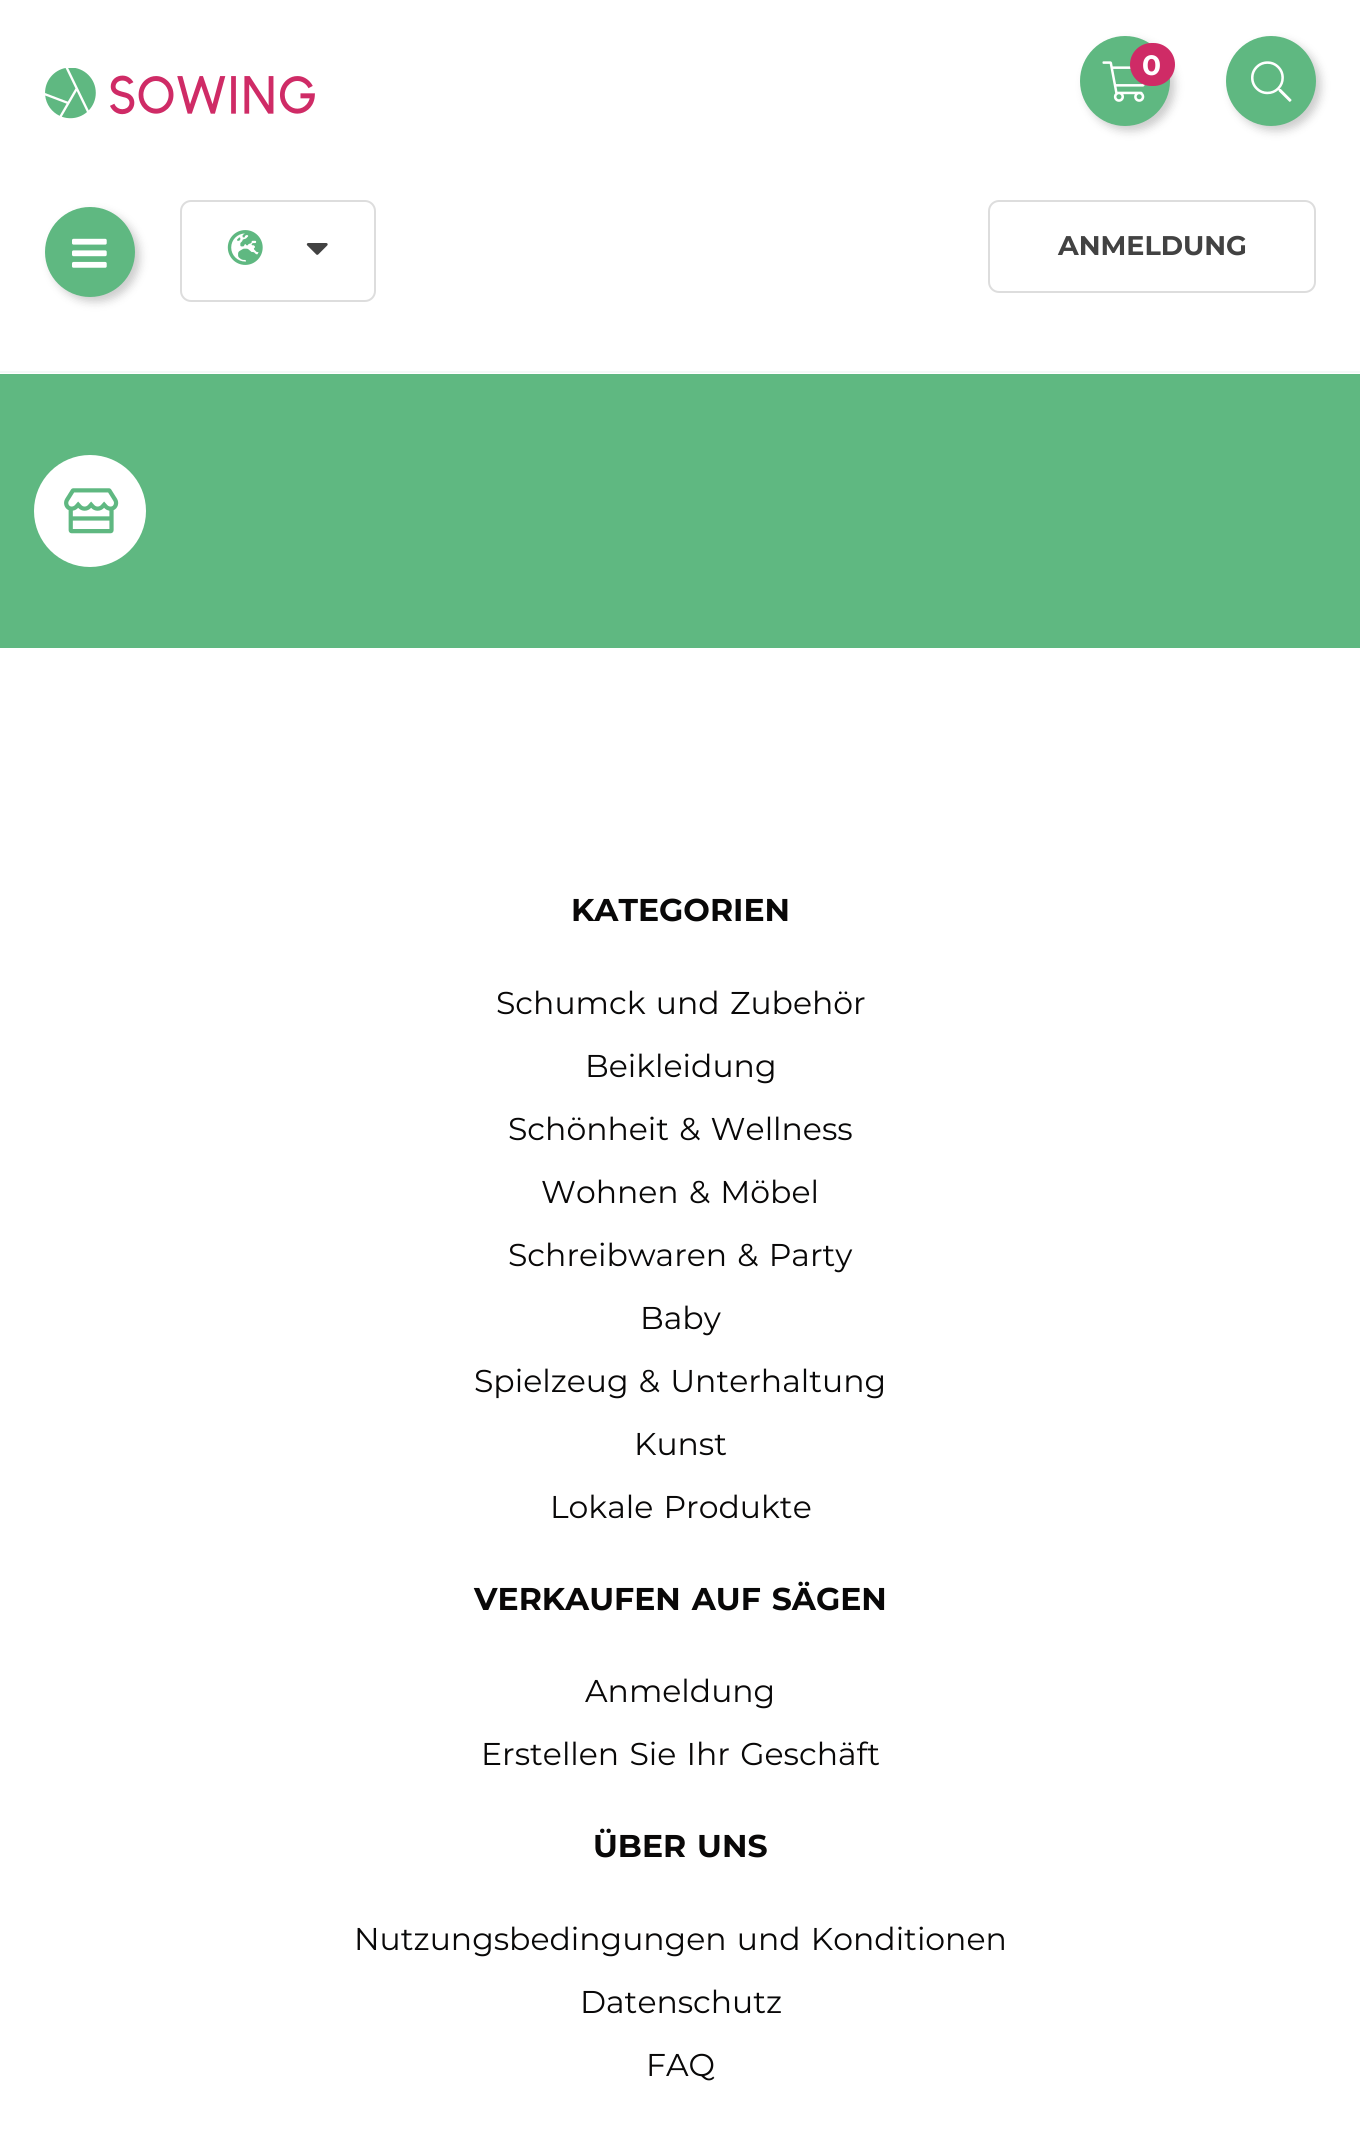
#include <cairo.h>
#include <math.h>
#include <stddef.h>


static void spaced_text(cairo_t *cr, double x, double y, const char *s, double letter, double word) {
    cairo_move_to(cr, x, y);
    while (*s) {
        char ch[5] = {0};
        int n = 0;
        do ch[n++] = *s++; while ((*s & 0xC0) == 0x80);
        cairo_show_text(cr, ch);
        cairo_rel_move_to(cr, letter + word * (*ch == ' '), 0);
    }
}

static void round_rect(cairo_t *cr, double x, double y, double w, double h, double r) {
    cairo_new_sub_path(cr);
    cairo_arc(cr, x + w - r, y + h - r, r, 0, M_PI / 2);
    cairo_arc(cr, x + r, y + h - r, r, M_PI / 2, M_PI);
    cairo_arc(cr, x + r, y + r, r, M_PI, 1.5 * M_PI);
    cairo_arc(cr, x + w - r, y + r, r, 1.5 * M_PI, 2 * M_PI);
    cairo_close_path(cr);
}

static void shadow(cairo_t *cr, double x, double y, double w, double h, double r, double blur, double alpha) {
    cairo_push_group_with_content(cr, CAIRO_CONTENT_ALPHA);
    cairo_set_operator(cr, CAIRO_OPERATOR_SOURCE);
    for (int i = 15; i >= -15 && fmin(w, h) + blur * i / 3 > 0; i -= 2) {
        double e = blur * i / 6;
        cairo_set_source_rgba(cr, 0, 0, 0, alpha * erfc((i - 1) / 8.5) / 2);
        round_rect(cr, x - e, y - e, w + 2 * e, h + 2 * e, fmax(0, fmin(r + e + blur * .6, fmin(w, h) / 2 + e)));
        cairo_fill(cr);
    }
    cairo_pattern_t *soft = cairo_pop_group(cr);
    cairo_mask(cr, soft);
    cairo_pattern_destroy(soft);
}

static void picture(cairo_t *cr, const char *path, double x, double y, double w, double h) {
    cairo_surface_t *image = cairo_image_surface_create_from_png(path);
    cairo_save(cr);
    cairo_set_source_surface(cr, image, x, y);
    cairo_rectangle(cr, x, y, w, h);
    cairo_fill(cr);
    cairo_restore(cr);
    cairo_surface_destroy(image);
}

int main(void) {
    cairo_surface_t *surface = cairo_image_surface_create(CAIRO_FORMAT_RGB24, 1360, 2129);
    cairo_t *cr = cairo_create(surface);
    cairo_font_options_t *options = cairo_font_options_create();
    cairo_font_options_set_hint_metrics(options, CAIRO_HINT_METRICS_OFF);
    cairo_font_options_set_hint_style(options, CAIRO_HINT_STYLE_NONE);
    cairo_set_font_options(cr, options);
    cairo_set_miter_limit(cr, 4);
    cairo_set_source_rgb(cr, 1, 1, 1);
    cairo_paint(cr);
    cairo_set_source_rgb(cr, 0, 0, 0);
    shadow(cr, 1085, 41, 90, 90, 45, 4.5, 0.2);
    cairo_set_source_rgb(cr, 0.373, 0.722, 0.506);
    cairo_arc(cr, 1125, 81, 45, 0, 2 * M_PI);
    cairo_fill(cr);
    picture(cr, "img1.png", 1102, 61, 43, 41);
    cairo_set_source_rgb(cr, 0.812, 0.169, 0.4);
    round_rect(cr, 1130, 43, 45, 43, 21.5);
    cairo_fill(cr);
    cairo_select_font_face(cr, "Montserrat", CAIRO_FONT_SLANT_NORMAL, CAIRO_FONT_WEIGHT_BOLD);
    cairo_set_font_size(cr, 28);
    cairo_set_source_rgb(cr, 1, 1, 1);
    cairo_move_to(cr, 1142, 75);
    cairo_show_text(cr, "0");
    cairo_set_source_rgb(cr, 0, 0, 0);
    shadow(cr, 1231, 41, 90, 90, 45, 4.5, 0.2);
    cairo_set_source_rgb(cr, 0.373, 0.722, 0.506);
    cairo_arc(cr, 1271, 81, 45, 0, 2 * M_PI);
    cairo_fill(cr);
    picture(cr, "img2.png", 1251, 61, 41, 41);
    picture(cr, "img3.png", 45, 68, 270, 51);
    cairo_set_source_rgb(cr, 0, 0, 0);
    shadow(cr, 50, 212, 90, 90, 45, 4.5, 0.2);
    cairo_set_source_rgb(cr, 0.373, 0.722, 0.506);
    cairo_arc(cr, 90, 252, 45, 0, 2 * M_PI);
    cairo_fill(cr);
    picture(cr, "img4.png", 72, 238, 35, 30);
    round_rect(cr, 181, 201, 194, 100, 10);
    cairo_set_source_rgb(cr, 0.867, 0.867, 0.867);
    cairo_stroke(cr);
    picture(cr, "img5.png", 227, 230, 36, 35);
    picture(cr, "img6.png", 306, 243, 22, 12);
    round_rect(cr, 989, 201, 326, 91, 10);
    cairo_stroke(cr);
    cairo_set_font_size(cr, 27);
    cairo_set_source_rgb(cr, 0.259, 0.259, 0.259);
    cairo_move_to(cr, 1058, 255);
    cairo_show_text(cr, "ANMELDUNG");
    cairo_set_source_rgb(cr, 0.957, 0.969, 0.961);
    cairo_rectangle(cr, 0, 371, 1360, 2);
    cairo_fill(cr);
    cairo_set_source_rgb(cr, 0.373, 0.722, 0.506);
    cairo_rectangle(cr, 0, 374, 1360, 274);
    cairo_fill(cr);
    cairo_set_source_rgb(cr, 1, 1, 1);
    cairo_arc(cr, 90, 511, 56, 0, 2 * M_PI);
    cairo_fill(cr);
    picture(cr, "img7.png", 64, 488, 55, 46);
    cairo_set_font_size(cr, 31.5);
    cairo_set_source_rgb(cr, 0.039, 0.035, 0.035);
    cairo_move_to(cr, 571, 921);
    cairo_show_text(cr, "KATEGORIEN");
    cairo_select_font_face(cr, "Montserrat", CAIRO_FONT_SLANT_NORMAL, CAIRO_FONT_WEIGHT_NORMAL);
    spaced_text(cr, 496, 1014, "Schumck und Zubehör", 0, 2);
    cairo_move_to(cr, 585, 1077);
    cairo_show_text(cr, "Beikleidung");
    spaced_text(cr, 508, 1140, "Schönheit & Wellness", 0, 2);
    spaced_text(cr, 541, 1203, "Wohnen & Möbel", 0, 2);
    spaced_text(cr, 508, 1266, "Schreibwaren & Party", 0, 2);
    cairo_move_to(cr, 640, 1329);
    cairo_show_text(cr, "Baby");
    spaced_text(cr, 474, 1392, "Spielzeug & Unterhaltung", 0, 2);
    cairo_move_to(cr, 634, 1455);
    cairo_show_text(cr, "Kunst");
    spaced_text(cr, 550, 1518, "Lokale Produkte", 0, 2);
    cairo_select_font_face(cr, "Montserrat", CAIRO_FONT_SLANT_NORMAL, CAIRO_FONT_WEIGHT_BOLD);
    spaced_text(cr, 474, 1610, "VERKAUFEN AUF SÄGEN", 0, 2);
    cairo_select_font_face(cr, "Montserrat", CAIRO_FONT_SLANT_NORMAL, CAIRO_FONT_WEIGHT_NORMAL);
    cairo_move_to(cr, 585, 1702);
    cairo_show_text(cr, "Anmeldung");
    spaced_text(cr, 481, 1765, "Erstellen Sie Ihr Geschäft", 0, 2);
    cairo_select_font_face(cr, "Montserrat", CAIRO_FONT_SLANT_NORMAL, CAIRO_FONT_WEIGHT_BOLD);
    spaced_text(cr, 593, 1857, "ÜBER UNS", 0, 2);
    cairo_select_font_face(cr, "Montserrat", CAIRO_FONT_SLANT_NORMAL, CAIRO_FONT_WEIGHT_NORMAL);
    spaced_text(cr, 354, 1950, "Nutzungsbedingungen und Konditionen", 0, 2);
    cairo_move_to(cr, 580, 2013);
    cairo_show_text(cr, "Datenschutz");
    cairo_move_to(cr, 646, 2076);
    cairo_show_text(cr, "FAQ");
    cairo_surface_write_to_png(surface, "page.png");
    cairo_font_options_destroy(options);
    cairo_destroy(cr);
    cairo_surface_destroy(surface);
    return 0;
}
